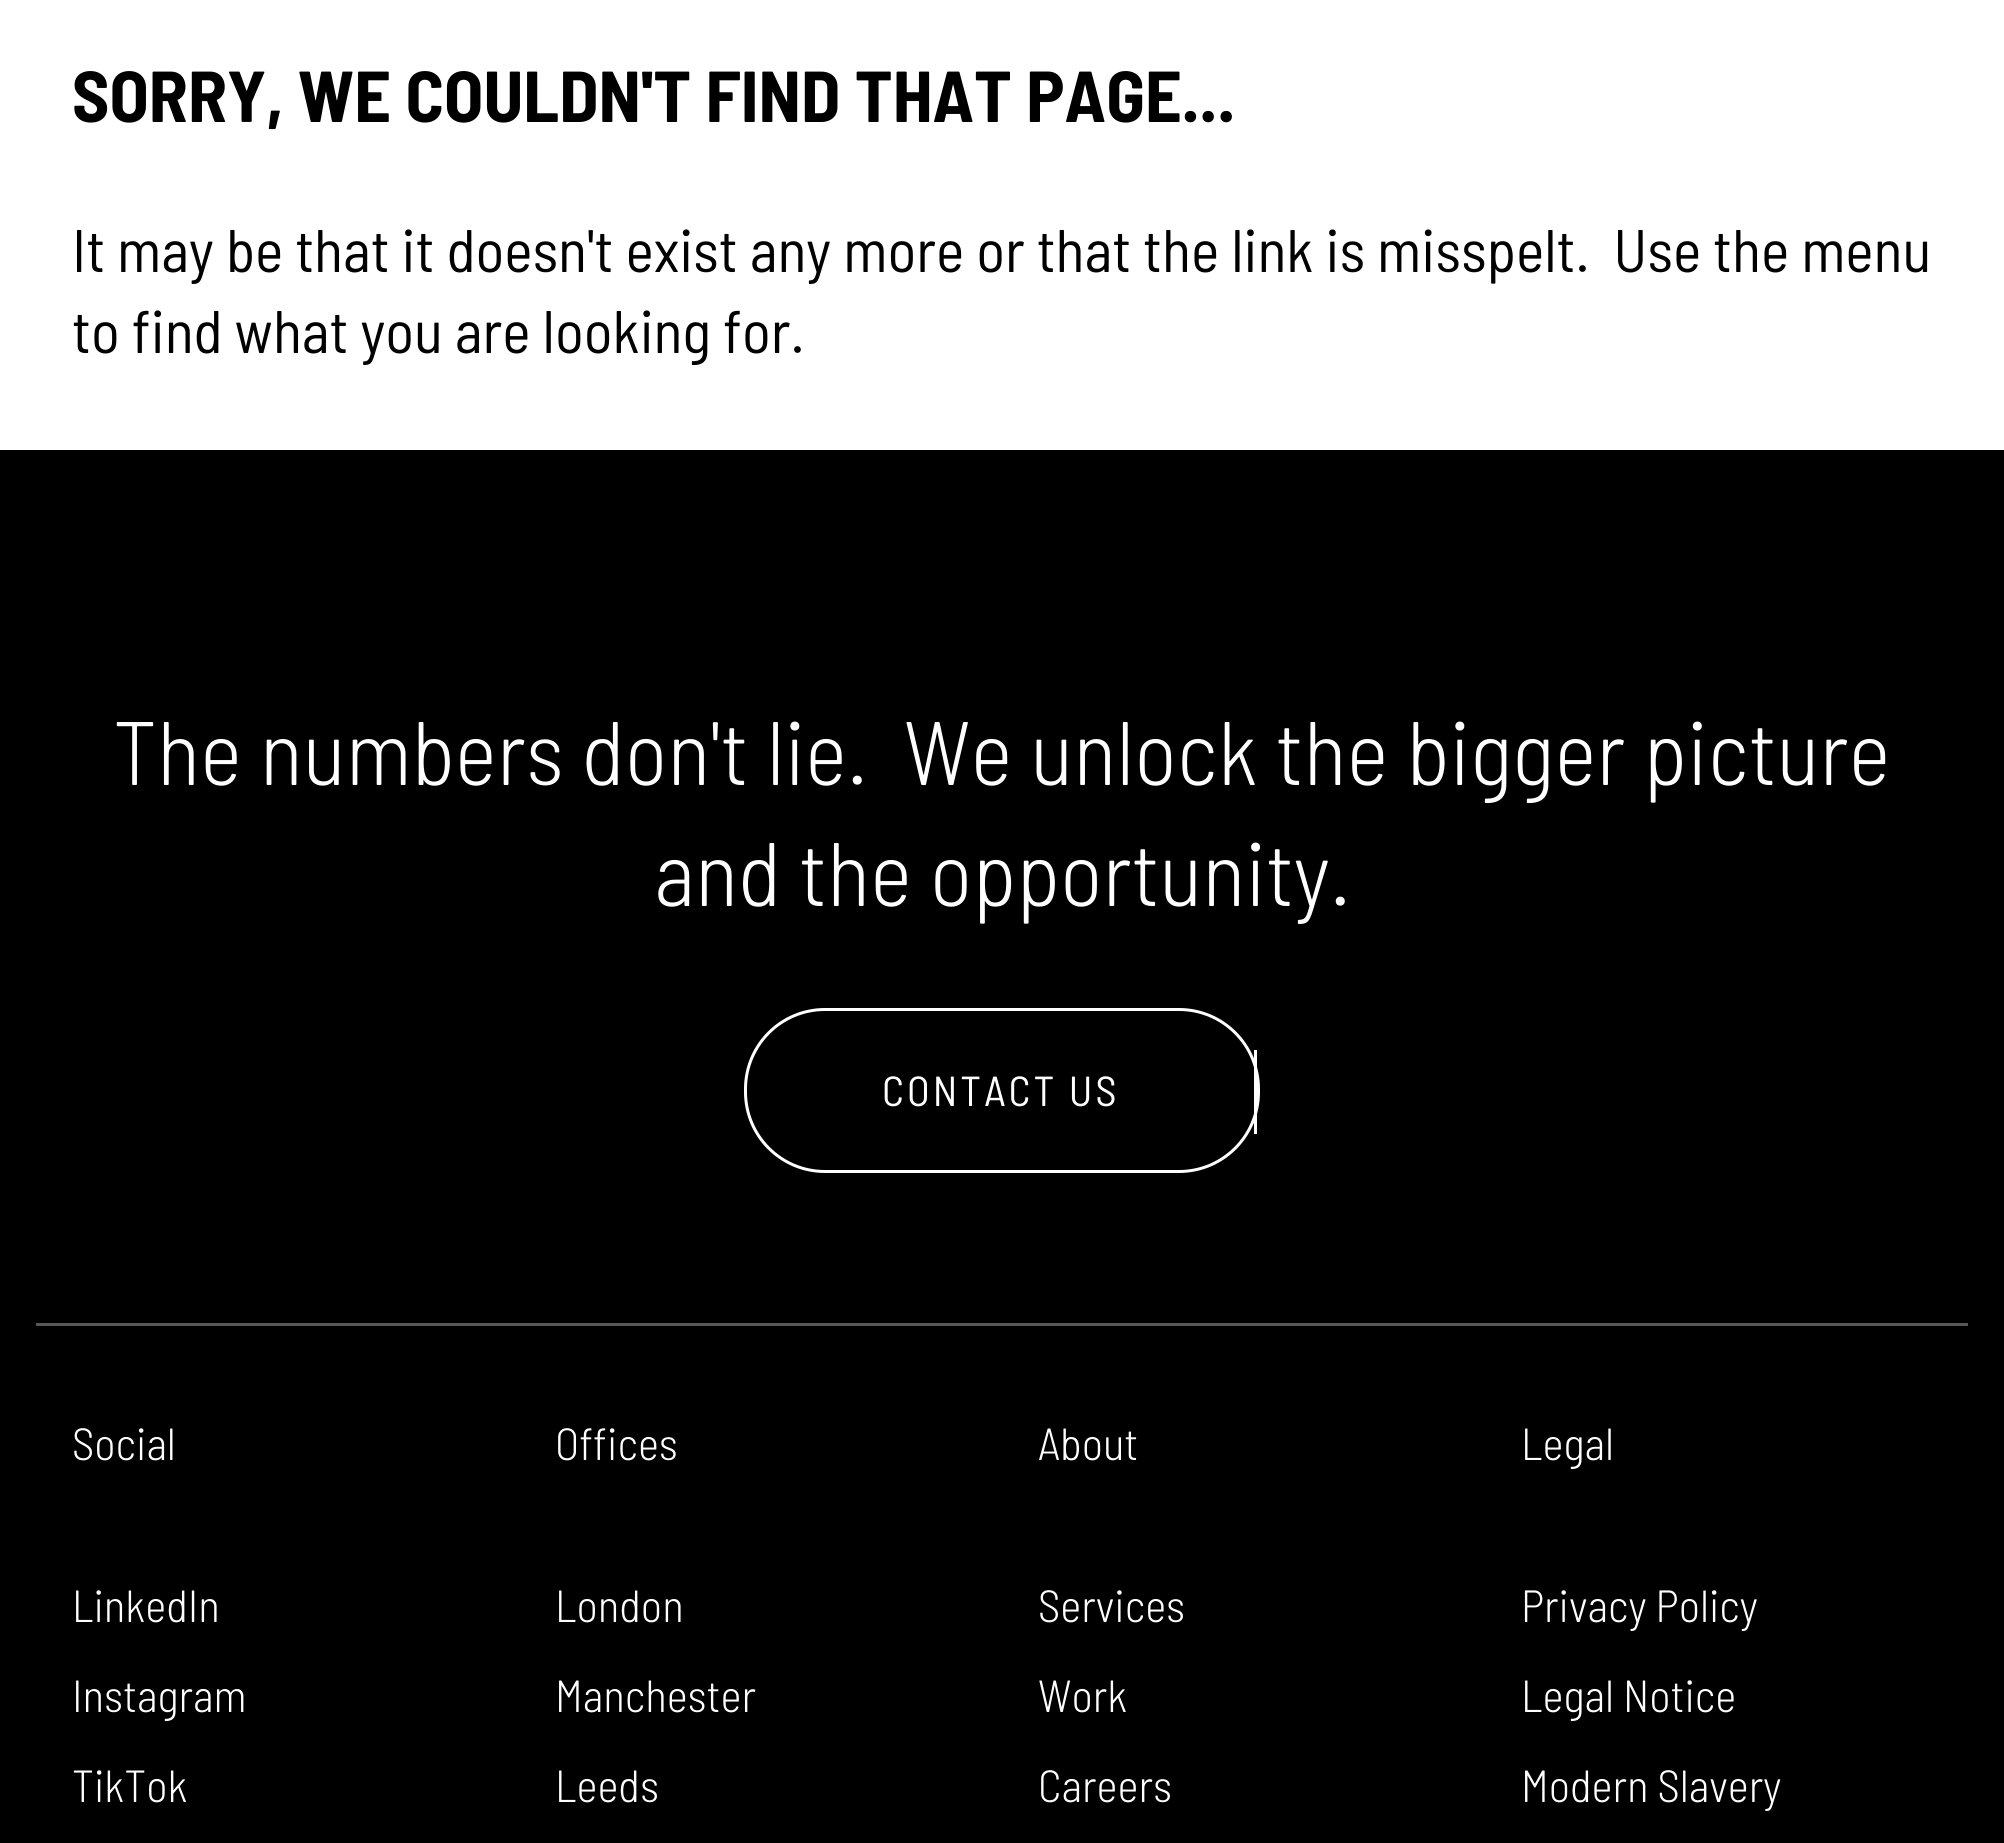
#include <cairo.h>
#include <math.h>
#include <stddef.h>


static void spaced_text(cairo_t *cr, double x, double y, const char *s, double letter, double word) {
    cairo_move_to(cr, x, y);
    while (*s) {
        char ch[5] = {0};
        int n = 0;
        do ch[n++] = *s++; while ((*s & 0xC0) == 0x80);
        cairo_show_text(cr, ch);
        cairo_rel_move_to(cr, letter + word * (*ch == ' '), 0);
    }
}

static void round_rect(cairo_t *cr, double x, double y, double w, double h, double r) {
    cairo_new_sub_path(cr);
    cairo_arc(cr, x + w - r, y + h - r, r, 0, M_PI / 2);
    cairo_arc(cr, x + r, y + h - r, r, M_PI / 2, M_PI);
    cairo_arc(cr, x + r, y + r, r, M_PI, 1.5 * M_PI);
    cairo_arc(cr, x + w - r, y + r, r, 1.5 * M_PI, 2 * M_PI);
    cairo_close_path(cr);
}

int main(void) {
    cairo_surface_t *surface = cairo_image_surface_create(CAIRO_FORMAT_RGB24, 2004, 1843);
    cairo_t *cr = cairo_create(surface);
    cairo_font_options_t *options = cairo_font_options_create();
    cairo_font_options_set_hint_metrics(options, CAIRO_HINT_METRICS_OFF);
    cairo_font_options_set_hint_style(options, CAIRO_HINT_STYLE_NONE);
    cairo_set_font_options(cr, options);
    cairo_set_miter_limit(cr, 4);
    cairo_set_source_rgb(cr, 1, 1, 1);
    cairo_paint(cr);
    cairo_select_font_face(cr, "Barlow Semi Condensed", CAIRO_FONT_SLANT_NORMAL, CAIRO_FONT_WEIGHT_BOLD);
    cairo_set_font_size(cr, 72);
    cairo_set_source_rgb(cr, 0, 0, 0);
    cairo_move_to(cr, 72, 122);
    cairo_show_text(cr, "SORRY, WE COULDN'T FIND THAT PAGE...");
    cairo_select_font_face(cr, "Barlow Semi Condensed", CAIRO_FONT_SLANT_NORMAL, CAIRO_FONT_WEIGHT_NORMAL);
    cairo_set_font_size(cr, 60);
    cairo_move_to(cr, 72, 272);
    cairo_show_text(cr, "It may be that it doesn't exist any more or that the link is misspelt.  Use the menu");
    cairo_move_to(cr, 72, 353);
    cairo_show_text(cr, "to find what you are looking for.");
    cairo_rectangle(cr, 0, 450, 2004, 1393);
    cairo_fill(cr);
    cairo_select_font_face(cr, "Barlow Semi Condensed Light", CAIRO_FONT_SLANT_NORMAL, CAIRO_FONT_WEIGHT_NORMAL);
    cairo_set_font_size(cr, 90);
    cairo_set_source_rgb(cr, 1, 1, 1);
    cairo_move_to(cr, 113, 785);
    cairo_show_text(cr, "The numbers don't lie.  We unlock the bigger picture");
    cairo_move_to(cr, 654, 906);
    cairo_show_text(cr, "and the opportunity.");
    round_rect(cr, 745.5, 1009.5, 513, 162, 79.5);
    cairo_set_line_width(cr, 3);
    cairo_stroke(cr);
    cairo_rectangle(cr, 1254, 1050, 3, 84);
    cairo_fill(cr);
    cairo_select_font_face(cr, "Barlow Semi Condensed", CAIRO_FONT_SLANT_NORMAL, CAIRO_FONT_WEIGHT_NORMAL);
    cairo_set_font_size(cr, 42);
    spaced_text(cr, 882, 1106, "CONTACT US", 3, 0);
    cairo_set_source_rgb(cr, 0.341, 0.341, 0.341);
    cairo_rectangle(cr, 36, 1323, 1932, 3);
    cairo_fill(cr);
    cairo_select_font_face(cr, "Barlow Semi Condensed Light", CAIRO_FONT_SLANT_NORMAL, CAIRO_FONT_WEIGHT_NORMAL);
    cairo_set_font_size(cr, 45);
    cairo_set_source_rgb(cr, 1, 1, 1);
    cairo_move_to(cr, 72, 1460);
    cairo_show_text(cr, "Social");
    cairo_move_to(cr, 72, 1622);
    cairo_show_text(cr, "LinkedIn");
    cairo_move_to(cr, 72, 1712);
    cairo_show_text(cr, "Instagram");
    cairo_move_to(cr, 72, 1802);
    cairo_show_text(cr, "TikTok");
    cairo_move_to(cr, 555, 1460);
    cairo_show_text(cr, "Offices");
    cairo_move_to(cr, 555, 1622);
    cairo_show_text(cr, "London");
    cairo_move_to(cr, 555, 1712);
    cairo_show_text(cr, "Manchester");
    cairo_move_to(cr, 555, 1802);
    cairo_show_text(cr, "Leeds");
    cairo_move_to(cr, 1038, 1460);
    cairo_show_text(cr, "About");
    cairo_move_to(cr, 1038, 1622);
    cairo_show_text(cr, "Services");
    cairo_move_to(cr, 1038, 1712);
    cairo_show_text(cr, "Work");
    cairo_move_to(cr, 1038, 1802);
    cairo_show_text(cr, "Careers");
    cairo_move_to(cr, 1521, 1460);
    cairo_show_text(cr, "Legal");
    cairo_move_to(cr, 1521, 1622);
    cairo_show_text(cr, "Privacy Policy");
    cairo_move_to(cr, 1521, 1712);
    cairo_show_text(cr, "Legal Notice");
    cairo_move_to(cr, 1521, 1802);
    cairo_show_text(cr, "Modern Slavery");
    cairo_surface_write_to_png(surface, "page.png");
    cairo_font_options_destroy(options);
    cairo_destroy(cr);
    cairo_surface_destroy(surface);
    return 0;
}
